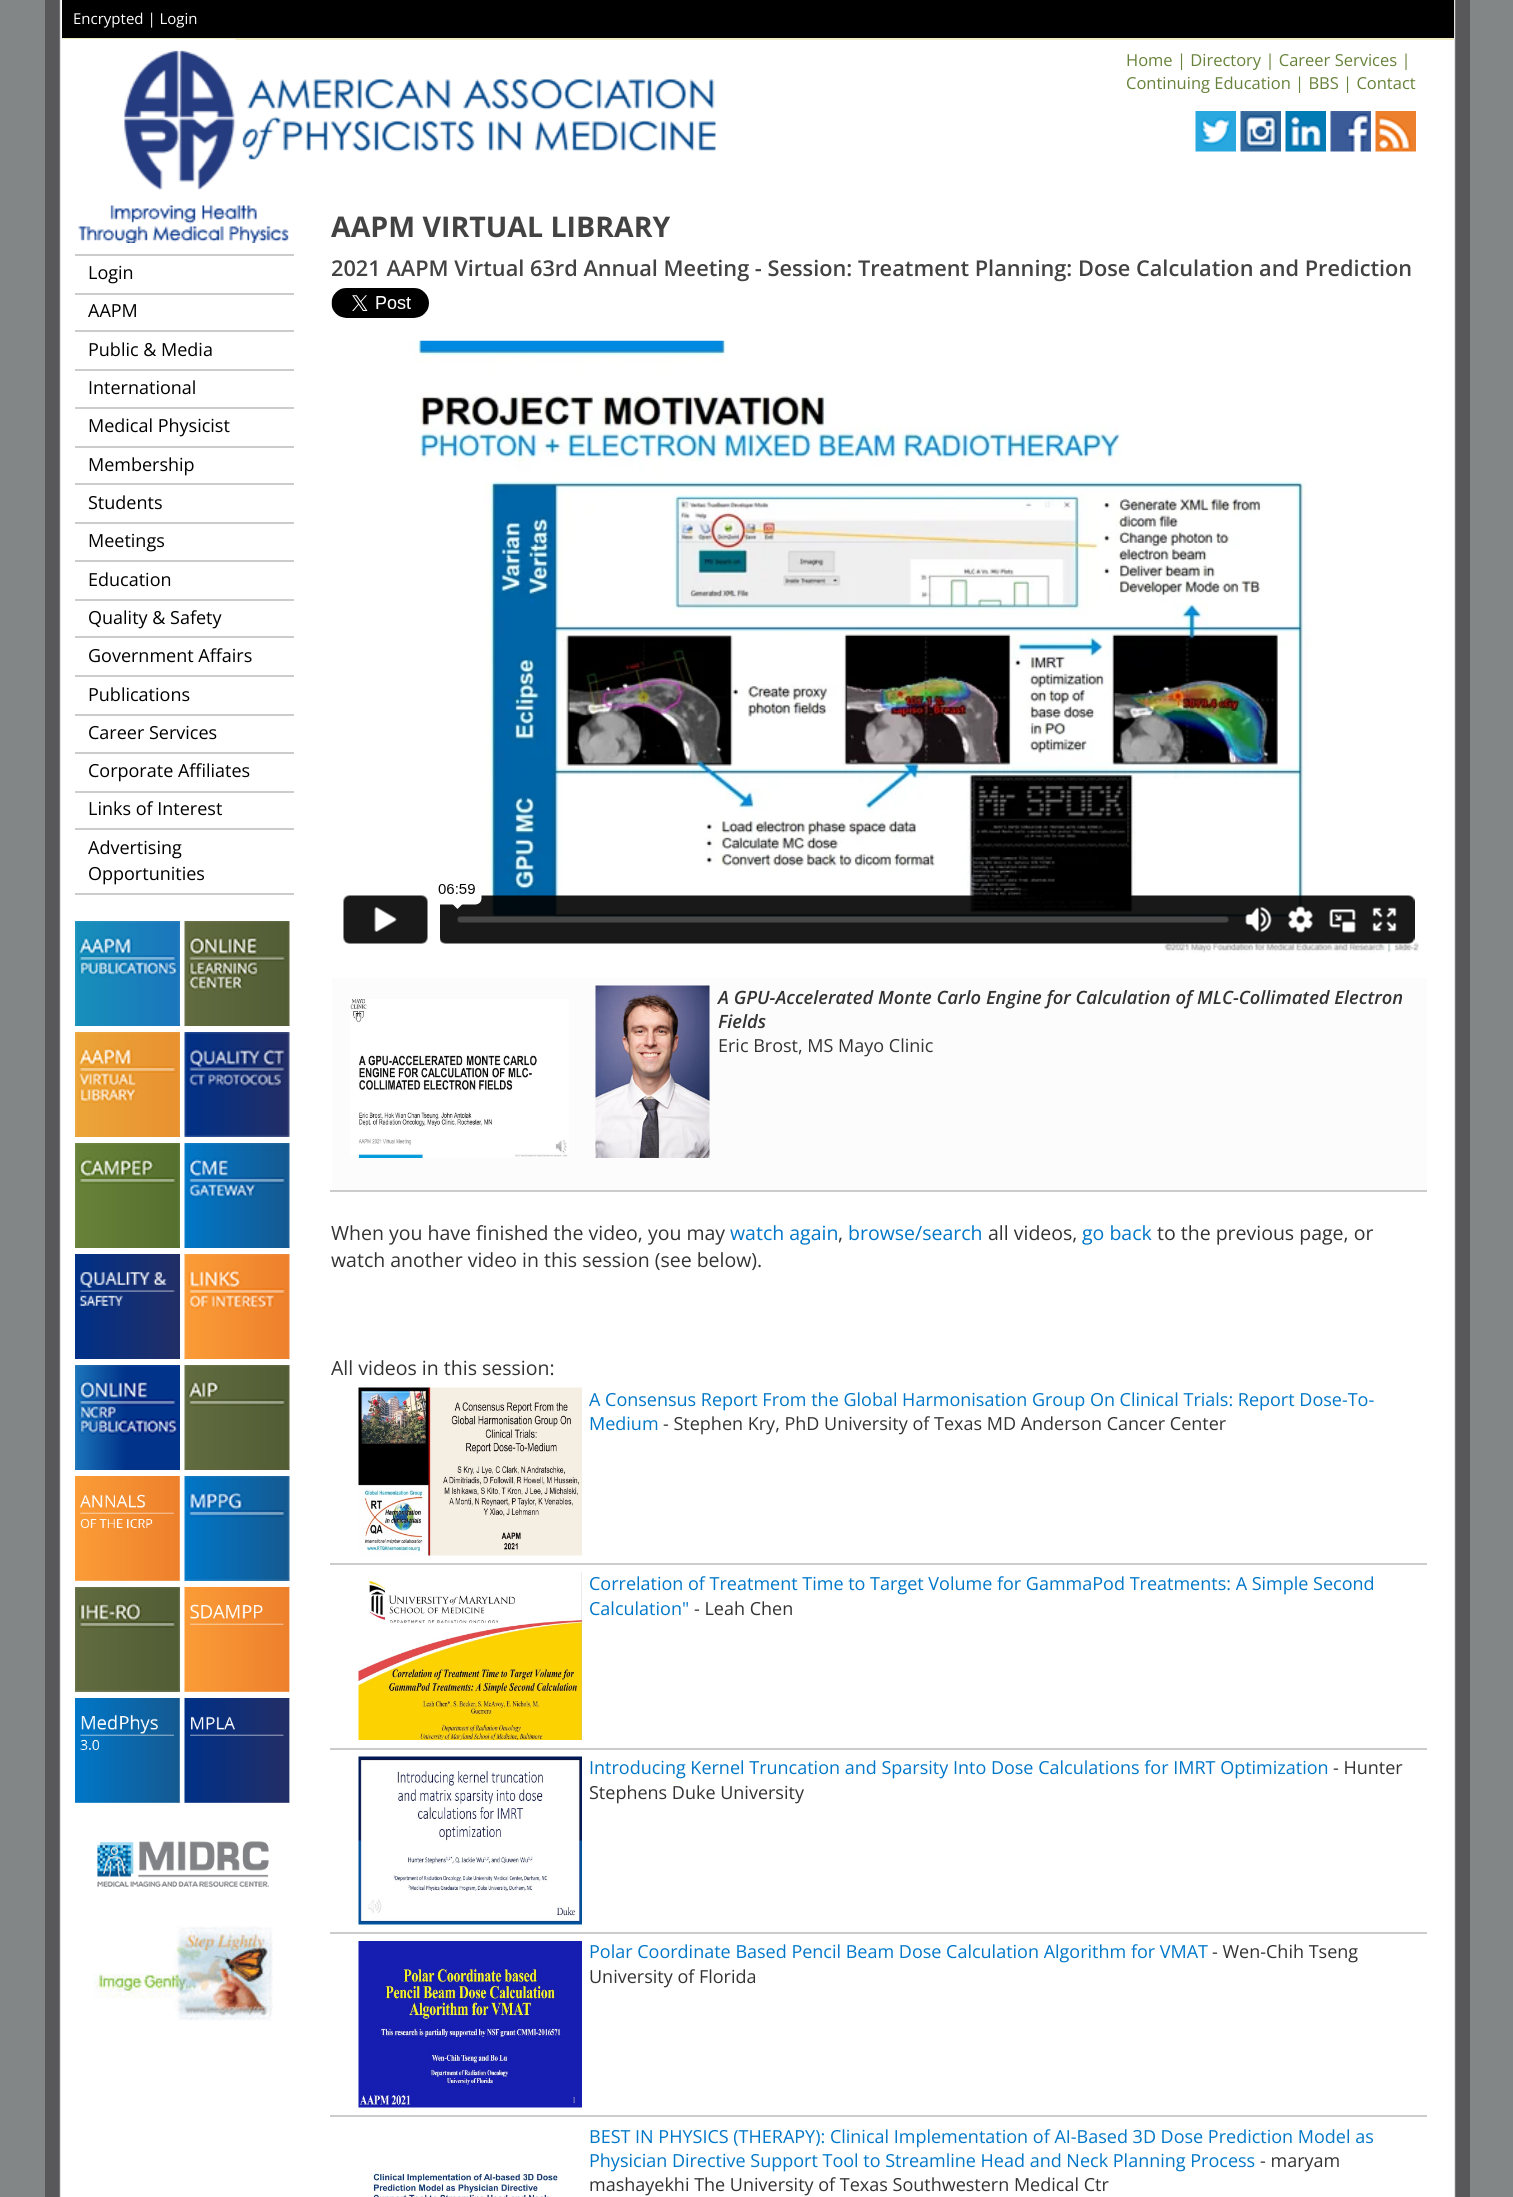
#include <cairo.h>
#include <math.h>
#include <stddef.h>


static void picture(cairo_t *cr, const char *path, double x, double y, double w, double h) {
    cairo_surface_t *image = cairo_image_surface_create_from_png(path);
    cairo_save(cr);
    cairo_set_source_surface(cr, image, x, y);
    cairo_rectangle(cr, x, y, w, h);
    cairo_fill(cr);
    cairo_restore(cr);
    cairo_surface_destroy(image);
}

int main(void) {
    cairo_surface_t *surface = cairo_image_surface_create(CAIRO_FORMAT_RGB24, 1513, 2197);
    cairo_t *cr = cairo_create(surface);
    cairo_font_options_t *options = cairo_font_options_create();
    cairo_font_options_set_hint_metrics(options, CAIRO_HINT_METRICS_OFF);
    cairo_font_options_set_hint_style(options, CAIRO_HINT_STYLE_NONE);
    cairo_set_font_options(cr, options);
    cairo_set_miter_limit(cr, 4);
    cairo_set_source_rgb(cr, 0.51, 0.525, 0.525);
    cairo_paint(cr);
    picture(cr, "img1.png", 45, 0, 1425, 2197);
    cairo_set_source_rgb(cr, 0, 0, 0);
    cairo_rectangle(cr, 62, 0, 1392, 38);
    cairo_fill(cr);
    cairo_set_source_rgb(cr, 0.933, 0.922, 0.753);
    cairo_rectangle(cr, 62, 38, 1392, 2);
    cairo_fill(cr);
    cairo_select_font_face(cr, "Open Sans", CAIRO_FONT_SLANT_NORMAL, CAIRO_FONT_WEIGHT_NORMAL);
    cairo_set_font_size(cr, 15);
    cairo_set_source_rgb(cr, 1, 1, 1);
    cairo_move_to(cr, 73, 24);
    cairo_show_text(cr, "Encrypted | Login");
    picture(cr, "img2.png", 242, 79, 474, 81);
    picture(cr, "img3.png", 62, 39, 174, 151);
    cairo_set_font_size(cr, 16.5);
    cairo_set_source_rgb(cr, 0.404, 0.51, 0.227);
    cairo_move_to(cr, 1126, 66);
    cairo_show_text(cr, "Home | Directory | Career Services |");
    cairo_move_to(cr, 1126, 89);
    cairo_show_text(cr, "Continuing Education | BBS | Contact");
    picture(cr, "img4.png", 1195, 111, 41, 41);
    picture(cr, "img5.png", 1240, 111, 41, 41);
    picture(cr, "img6.png", 1285, 111, 41, 41);
    picture(cr, "img7.png", 1330, 111, 41, 41);
    picture(cr, "img8.png", 1375, 111, 41, 41);
    cairo_select_font_face(cr, "Open Sans", CAIRO_FONT_SLANT_NORMAL, CAIRO_FONT_WEIGHT_BOLD);
    cairo_set_font_size(cr, 28.5);
    cairo_set_source_rgb(cr, 0.263, 0.263, 0.263);
    cairo_move_to(cr, 331, 237);
    cairo_show_text(cr, "AAPM VIRTUAL LIBRARY");
    picture(cr, "img9.png", 78, 205, 211, 38);
    cairo_set_source_rgb(cr, 0.8, 0.8, 0.8);
    cairo_rectangle(cr, 75, 893, 219, 2);
    cairo_fill(cr);
    cairo_rectangle(cr, 75, 254, 219, 2);
    cairo_fill(cr);
    cairo_select_font_face(cr, "Open Sans", CAIRO_FONT_SLANT_NORMAL, CAIRO_FONT_WEIGHT_NORMAL);
    cairo_set_font_size(cr, 18);
    cairo_set_source_rgb(cr, 0, 0, 0);
    cairo_move_to(cr, 88, 279);
    cairo_show_text(cr, "Login");
    cairo_set_source_rgb(cr, 0.8, 0.8, 0.8);
    cairo_rectangle(cr, 75, 293, 219, 2);
    cairo_fill(cr);
    cairo_set_source_rgb(cr, 0, 0, 0);
    cairo_move_to(cr, 88, 317);
    cairo_show_text(cr, "AAPM");
    cairo_set_source_rgb(cr, 0.8, 0.8, 0.8);
    cairo_rectangle(cr, 75, 330, 219, 2);
    cairo_fill(cr);
    cairo_set_source_rgb(cr, 0, 0, 0);
    cairo_move_to(cr, 88, 356);
    cairo_show_text(cr, "Public & Media");
    cairo_set_source_rgb(cr, 0.8, 0.8, 0.8);
    cairo_rectangle(cr, 75, 369, 219, 2);
    cairo_fill(cr);
    cairo_set_source_rgb(cr, 0, 0, 0);
    cairo_move_to(cr, 88, 394);
    cairo_show_text(cr, "International");
    cairo_set_source_rgb(cr, 0.8, 0.8, 0.8);
    cairo_rectangle(cr, 75, 407, 219, 2);
    cairo_fill(cr);
    cairo_set_source_rgb(cr, 0, 0, 0);
    cairo_move_to(cr, 88, 432);
    cairo_show_text(cr, "Medical Physicist");
    cairo_set_source_rgb(cr, 0.8, 0.8, 0.8);
    cairo_rectangle(cr, 75, 446, 219, 2);
    cairo_fill(cr);
    cairo_set_source_rgb(cr, 0, 0, 0);
    cairo_move_to(cr, 88, 471);
    cairo_show_text(cr, "Membership");
    cairo_set_source_rgb(cr, 0.8, 0.8, 0.8);
    cairo_rectangle(cr, 75, 483, 219, 2);
    cairo_fill(cr);
    cairo_set_source_rgb(cr, 0, 0, 0);
    cairo_move_to(cr, 88, 509);
    cairo_show_text(cr, "Students");
    cairo_set_source_rgb(cr, 0.8, 0.8, 0.8);
    cairo_rectangle(cr, 75, 522, 219, 2);
    cairo_fill(cr);
    cairo_set_source_rgb(cr, 0, 0, 0);
    cairo_move_to(cr, 88, 547);
    cairo_show_text(cr, "Meetings");
    cairo_set_source_rgb(cr, 0.8, 0.8, 0.8);
    cairo_rectangle(cr, 75, 560, 219, 2);
    cairo_fill(cr);
    cairo_set_source_rgb(cr, 0, 0, 0);
    cairo_move_to(cr, 88, 586);
    cairo_show_text(cr, "Education");
    cairo_set_source_rgb(cr, 0.8, 0.8, 0.8);
    cairo_rectangle(cr, 75, 599, 219, 2);
    cairo_fill(cr);
    cairo_set_source_rgb(cr, 0, 0, 0);
    cairo_move_to(cr, 88, 624);
    cairo_show_text(cr, "Quality & Safety");
    cairo_set_source_rgb(cr, 0.8, 0.8, 0.8);
    cairo_rectangle(cr, 75, 636, 219, 2);
    cairo_fill(cr);
    cairo_set_source_rgb(cr, 0, 0, 0);
    cairo_move_to(cr, 88, 662);
    cairo_show_text(cr, "Government Affairs");
    cairo_set_source_rgb(cr, 0.8, 0.8, 0.8);
    cairo_rectangle(cr, 75, 675, 219, 2);
    cairo_fill(cr);
    cairo_set_source_rgb(cr, 0, 0, 0);
    cairo_move_to(cr, 88, 701);
    cairo_show_text(cr, "Publications");
    cairo_set_source_rgb(cr, 0.8, 0.8, 0.8);
    cairo_rectangle(cr, 75, 714, 219, 2);
    cairo_fill(cr);
    cairo_set_source_rgb(cr, 0, 0, 0);
    cairo_move_to(cr, 88, 739);
    cairo_show_text(cr, "Career Services");
    cairo_set_source_rgb(cr, 0.8, 0.8, 0.8);
    cairo_rectangle(cr, 75, 752, 219, 2);
    cairo_fill(cr);
    cairo_set_source_rgb(cr, 0, 0, 0);
    cairo_move_to(cr, 88, 777);
    cairo_show_text(cr, "Corporate Affiliates");
    cairo_set_source_rgb(cr, 0.8, 0.8, 0.8);
    cairo_rectangle(cr, 75, 791, 219, 2);
    cairo_fill(cr);
    cairo_set_source_rgb(cr, 0, 0, 0);
    cairo_move_to(cr, 88, 815);
    cairo_show_text(cr, "Links of Interest");
    cairo_set_source_rgb(cr, 0.8, 0.8, 0.8);
    cairo_rectangle(cr, 75, 828, 219, 2);
    cairo_fill(cr);
    cairo_set_source_rgb(cr, 0, 0, 0);
    cairo_move_to(cr, 88, 854);
    cairo_show_text(cr, "Advertising");
    cairo_move_to(cr, 88, 880);
    cairo_show_text(cr, "Opportunities");
    picture(cr, "img10.png", 75, 921, 105, 105);
    picture(cr, "img11.png", 184, 921, 106, 105);
    picture(cr, "img12.png", 75, 1032, 105, 105);
    picture(cr, "img13.png", 184, 1032, 106, 105);
    picture(cr, "img14.png", 75, 1143, 105, 105);
    picture(cr, "img15.png", 184, 1143, 106, 105);
    picture(cr, "img16.png", 75, 1254, 105, 105);
    picture(cr, "img17.png", 184, 1254, 106, 105);
    picture(cr, "img18.png", 75, 1365, 105, 105);
    picture(cr, "img19.png", 184, 1365, 106, 105);
    picture(cr, "img20.png", 75, 1476, 105, 105);
    picture(cr, "img21.png", 184, 1476, 106, 105);
    picture(cr, "img22.png", 75, 1587, 105, 105);
    picture(cr, "img23.png", 184, 1587, 106, 105);
    picture(cr, "img24.png", 75, 1698, 105, 105);
    picture(cr, "img25.png", 184, 1698, 106, 105);
    picture(cr, "img26.png", 97, 1841, 172, 46);
    picture(cr, "img27.png", 93, 1926, 180, 95);
    cairo_select_font_face(cr, "Open Sans SemiBold", CAIRO_FONT_SLANT_NORMAL, CAIRO_FONT_WEIGHT_NORMAL);
    cairo_set_font_size(cr, 21.75);
    cairo_set_source_rgb(cr, 0.263, 0.263, 0.263);
    cairo_move_to(cr, 331, 276);
    cairo_show_text(cr, "2021 AAPM Virtual 63rd Annual Meeting - Session: Treatment Planning: Dose Calculation and Prediction");
    picture(cr, "img28.png", 331, 288, 98, 30);
    picture(cr, "img29.png", 343, 340, 1076, 613);
    cairo_set_source_rgb(cr, 0.8, 0.8, 0.8);
    cairo_rectangle(cr, 330, 1190, 1097, 2);
    cairo_fill(cr);
    cairo_set_source_rgb(cr, 0.988, 0.988, 0.988);
    cairo_rectangle(cr, 332, 978, 1095, 212);
    cairo_fill(cr);
    picture(cr, "img30.png", 350, 999, 219, 159);
    picture(cr, "img31.png", 595, 985, 115, 173);
    cairo_select_font_face(cr, "Open Sans SemiBold", CAIRO_FONT_SLANT_ITALIC, CAIRO_FONT_WEIGHT_NORMAL);
    cairo_set_font_size(cr, 18.35);
    cairo_set_source_rgb(cr, 0.2, 0.2, 0.2);
    cairo_move_to(cr, 718, 1004);
    cairo_show_text(cr, "A GPU-Accelerated Monte Carlo Engine for Calculation of MLC-Collimated Electron");
    cairo_move_to(cr, 718, 1028);
    cairo_show_text(cr, "Fields");
    cairo_select_font_face(cr, "Open Sans", CAIRO_FONT_SLANT_NORMAL, CAIRO_FONT_WEIGHT_NORMAL);
    cairo_set_font_size(cr, 18);
    cairo_move_to(cr, 718, 1052);
    cairo_show_text(cr, "Eric Brost, MS Mayo Clinic");
    cairo_set_font_size(cr, 19.5);
    cairo_move_to(cr, 331, 1240);
    cairo_show_text(cr, "When you have finished the video, you may");
    cairo_set_source_rgb(cr, 0, 0.467, 0.784);
    cairo_move_to(cr, 730, 1240);
    cairo_show_text(cr, "watch again");
    cairo_set_source_rgb(cr, 0.2, 0.2, 0.2);
    cairo_move_to(cr, 838, 1240);
    cairo_show_text(cr, ",");
    cairo_set_source_rgb(cr, 0, 0.467, 0.784);
    cairo_move_to(cr, 848, 1240);
    cairo_show_text(cr, "browse/search");
    cairo_set_source_rgb(cr, 0.2, 0.2, 0.2);
    cairo_move_to(cr, 988, 1240);
    cairo_show_text(cr, "all videos,");
    cairo_set_source_rgb(cr, 0, 0.467, 0.784);
    cairo_move_to(cr, 1082, 1240);
    cairo_show_text(cr, "go back");
    cairo_set_source_rgb(cr, 0.2, 0.2, 0.2);
    cairo_move_to(cr, 1157, 1240);
    cairo_show_text(cr, "to the previous page, or");
    cairo_move_to(cr, 331, 1267);
    cairo_show_text(cr, "watch another video in this session (see below).");
    cairo_move_to(cr, 331, 1375);
    cairo_show_text(cr, "All videos in this session:");
    cairo_set_source_rgb(cr, 0.8, 0.8, 0.8);
    cairo_rectangle(cr, 330, 1563, 1097, 2);
    cairo_fill(cr);
    picture(cr, "img32.png", 358, 1387, 224, 169);
    cairo_set_font_size(cr, 18);
    cairo_set_source_rgb(cr, 0, 0.467, 0.784);
    cairo_move_to(cr, 589, 1406);
    cairo_show_text(cr, "A Consensus Report From the Global Harmonisation Group On Clinical Trials: Report Dose-To-");
    cairo_move_to(cr, 589, 1430);
    cairo_show_text(cr, "Medium");
    cairo_set_source_rgb(cr, 0.2, 0.2, 0.2);
    cairo_move_to(cr, 663, 1430);
    cairo_show_text(cr, "- Stephen Kry, PhD University of Texas MD Anderson Cancer Center");
    cairo_set_source_rgb(cr, 0.8, 0.8, 0.8);
    cairo_rectangle(cr, 330, 1748, 1097, 2);
    cairo_fill(cr);
    picture(cr, "img33.png", 358, 1572, 224, 168);
    cairo_set_source_rgb(cr, 0, 0.467, 0.784);
    cairo_move_to(cr, 589, 1590);
    cairo_show_text(cr, "Correlation of Treatment Time to Target Volume for GammaPod Treatments: A Simple Second");
    cairo_move_to(cr, 589, 1615);
    cairo_show_text(cr, "Calculation\"");
    cairo_set_source_rgb(cr, 0.2, 0.2, 0.2);
    cairo_move_to(cr, 694, 1615);
    cairo_show_text(cr, "- Leah Chen");
    cairo_set_source_rgb(cr, 0.8, 0.8, 0.8);
    cairo_rectangle(cr, 330, 1932, 1097, 2);
    cairo_fill(cr);
    picture(cr, "img34.png", 358, 1756, 224, 169);
    cairo_set_source_rgb(cr, 0, 0.467, 0.784);
    cairo_move_to(cr, 589, 1774);
    cairo_show_text(cr, "Introducing Kernel Truncation and Sparsity Into Dose Calculations for IMRT Optimization");
    cairo_set_source_rgb(cr, 0.2, 0.2, 0.2);
    cairo_move_to(cr, 1333, 1774);
    cairo_show_text(cr, "- Hunter");
    cairo_move_to(cr, 589, 1799);
    cairo_show_text(cr, "Stephens Duke University");
    cairo_set_source_rgb(cr, 0.8, 0.8, 0.8);
    cairo_rectangle(cr, 330, 2115, 1097, 2);
    cairo_fill(cr);
    picture(cr, "img35.png", 358, 1941, 224, 167);
    cairo_set_source_rgb(cr, 0, 0.467, 0.784);
    cairo_move_to(cr, 589, 1958);
    cairo_show_text(cr, "Polar Coordinate Based Pencil Beam Dose Calculation Algorithm for VMAT");
    cairo_set_source_rgb(cr, 0.2, 0.2, 0.2);
    cairo_move_to(cr, 1212, 1958);
    cairo_show_text(cr, "- Wen-Chih Tseng");
    cairo_move_to(cr, 589, 1983);
    cairo_show_text(cr, "University of Florida");
    cairo_set_source_rgb(cr, 0, 0.467, 0.784);
    cairo_move_to(cr, 589, 2143);
    cairo_show_text(cr, "BEST IN PHYSICS (THERAPY): Clinical Implementation of AI-Based 3D Dose Prediction Model as");
    cairo_move_to(cr, 589, 2167);
    cairo_show_text(cr, "Physician Directive Support Tool to Streamline Head and Neck Planning Process");
    picture(cr, "img36.png", 372, 2173, 188, 24);
    cairo_set_source_rgb(cr, 0.2, 0.2, 0.2);
    cairo_move_to(cr, 1260, 2167);
    cairo_show_text(cr, "- maryam");
    cairo_move_to(cr, 589, 2191);
    cairo_show_text(cr, "mashayekhi The University of Texas Southwestern Medical Ctr");
    cairo_surface_write_to_png(surface, "page.png");
    cairo_font_options_destroy(options);
    cairo_destroy(cr);
    cairo_surface_destroy(surface);
    return 0;
}
